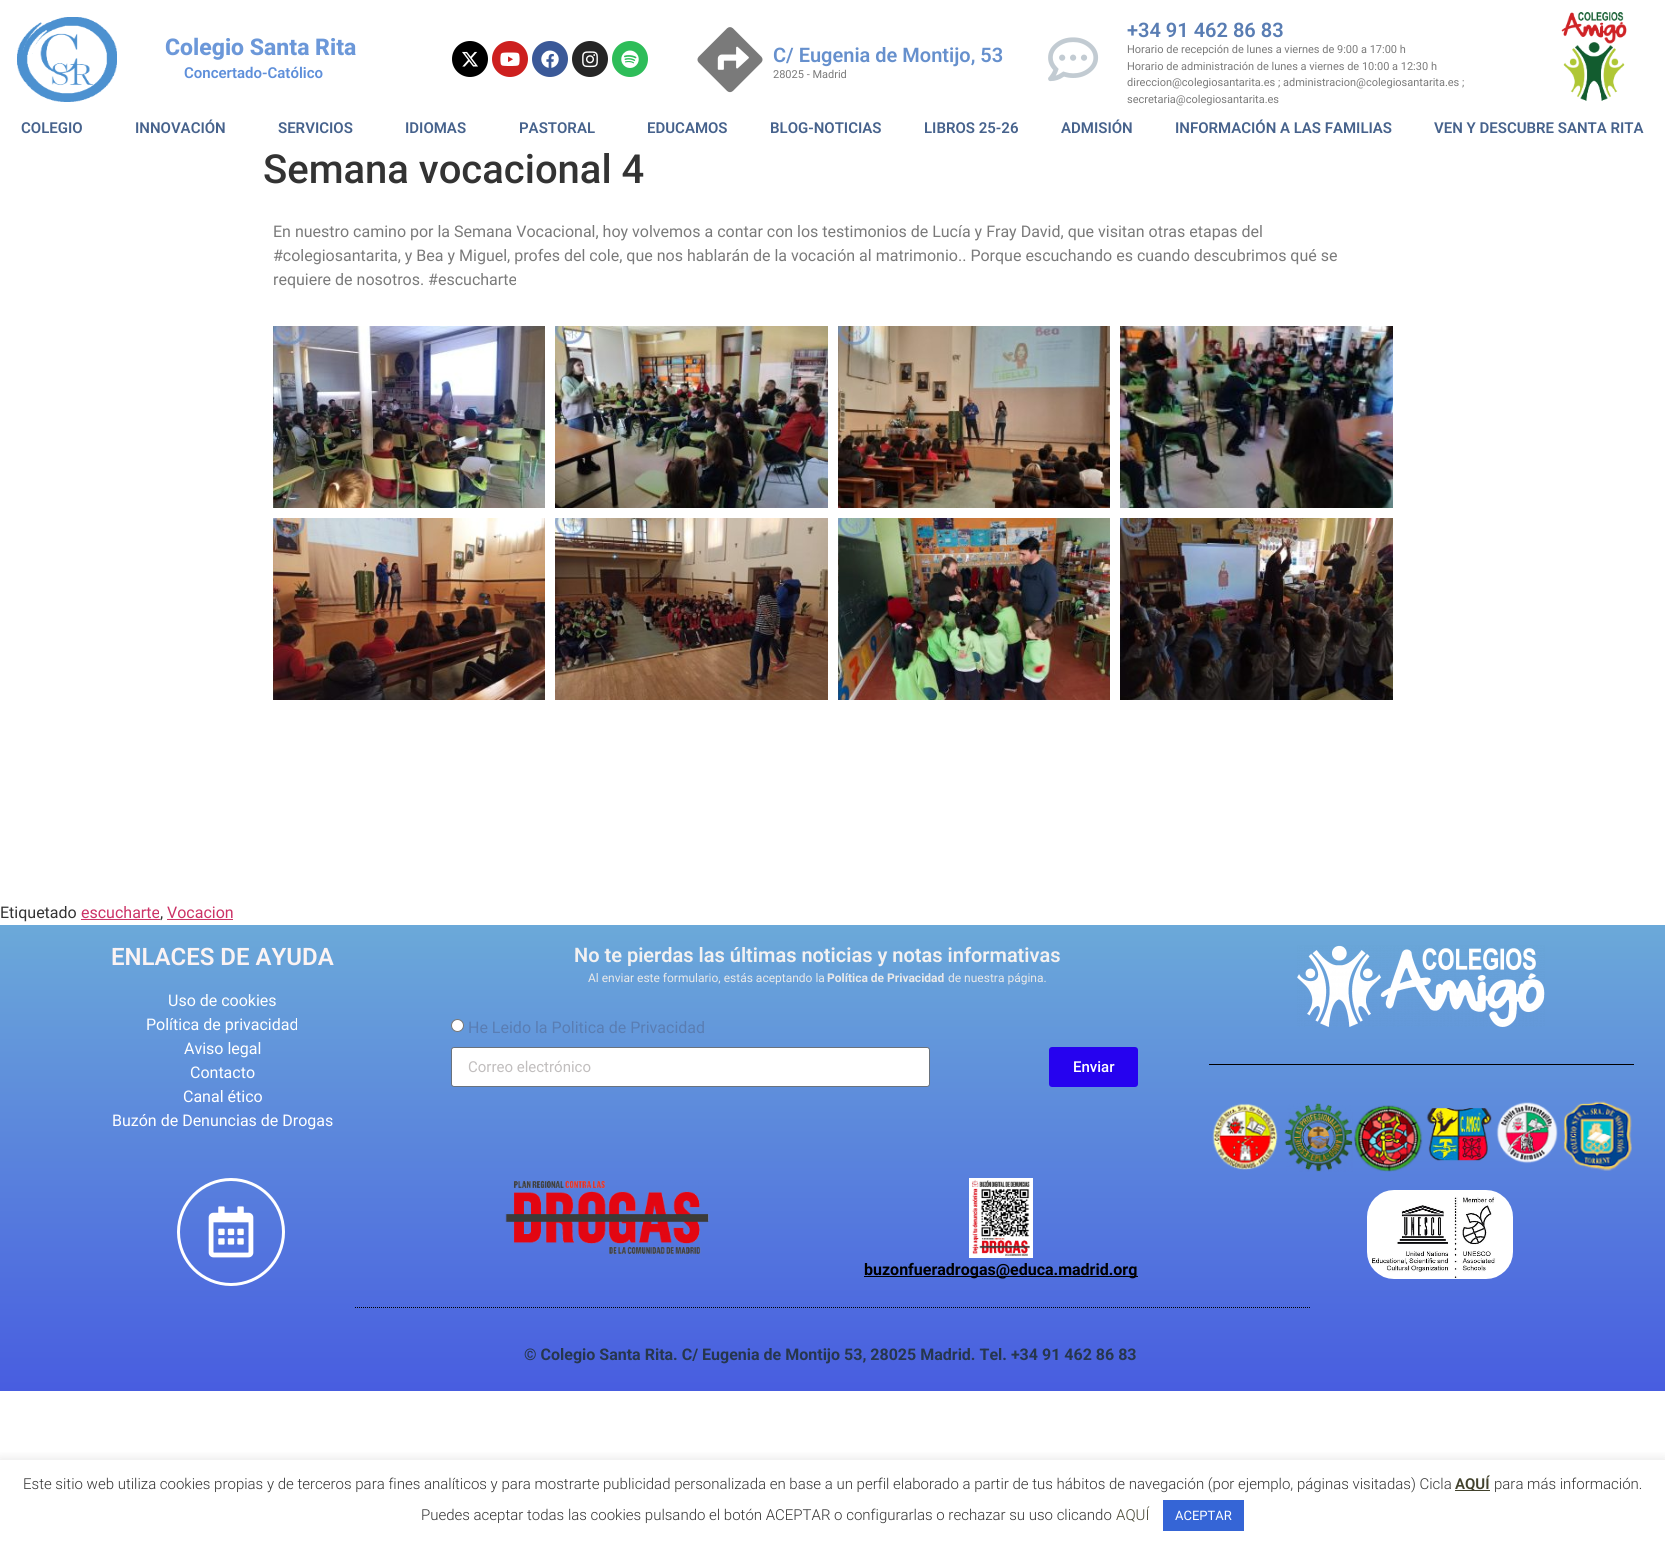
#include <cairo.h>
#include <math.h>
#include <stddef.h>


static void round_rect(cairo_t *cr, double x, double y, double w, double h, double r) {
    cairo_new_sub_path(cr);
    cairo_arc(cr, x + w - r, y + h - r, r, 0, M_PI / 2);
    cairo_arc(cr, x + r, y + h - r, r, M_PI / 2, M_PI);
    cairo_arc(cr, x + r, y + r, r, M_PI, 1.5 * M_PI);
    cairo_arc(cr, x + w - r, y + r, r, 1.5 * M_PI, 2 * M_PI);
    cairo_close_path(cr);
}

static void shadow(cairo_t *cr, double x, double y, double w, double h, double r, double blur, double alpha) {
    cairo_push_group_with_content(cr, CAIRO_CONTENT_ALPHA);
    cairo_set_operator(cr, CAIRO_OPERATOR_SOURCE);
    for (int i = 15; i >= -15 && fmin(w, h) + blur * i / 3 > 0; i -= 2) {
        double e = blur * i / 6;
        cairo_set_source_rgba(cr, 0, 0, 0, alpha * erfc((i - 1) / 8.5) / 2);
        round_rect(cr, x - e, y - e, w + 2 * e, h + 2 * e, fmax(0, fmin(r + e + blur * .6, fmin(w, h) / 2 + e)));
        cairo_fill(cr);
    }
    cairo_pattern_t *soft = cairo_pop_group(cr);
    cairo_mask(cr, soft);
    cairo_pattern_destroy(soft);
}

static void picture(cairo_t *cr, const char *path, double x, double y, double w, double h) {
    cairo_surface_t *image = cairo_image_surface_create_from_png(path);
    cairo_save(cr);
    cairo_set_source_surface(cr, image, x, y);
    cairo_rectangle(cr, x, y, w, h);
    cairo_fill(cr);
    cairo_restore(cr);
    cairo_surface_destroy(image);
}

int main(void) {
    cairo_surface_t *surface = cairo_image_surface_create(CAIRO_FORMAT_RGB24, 1665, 1543);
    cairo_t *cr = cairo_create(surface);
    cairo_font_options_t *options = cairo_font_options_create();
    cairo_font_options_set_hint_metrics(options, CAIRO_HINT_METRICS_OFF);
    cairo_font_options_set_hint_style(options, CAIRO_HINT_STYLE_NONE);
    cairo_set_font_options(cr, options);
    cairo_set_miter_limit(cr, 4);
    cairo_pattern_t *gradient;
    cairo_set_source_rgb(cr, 1, 1, 1);
    cairo_paint(cr);
    picture(cr, "img1.png", 17, 17, 100, 85);
    cairo_select_font_face(cr, "Roboto ExtraBold", CAIRO_FONT_SLANT_NORMAL, CAIRO_FONT_WEIGHT_NORMAL);
    cairo_set_font_size(cr, 23);
    cairo_set_source_rgb(cr, 0.424, 0.596, 0.851);
    cairo_move_to(cr, 165, 55);
    cairo_show_text(cr, "Colegio Santa Rita");
    cairo_select_font_face(cr, "Roboto SemiBold", CAIRO_FONT_SLANT_NORMAL, CAIRO_FONT_WEIGHT_NORMAL);
    cairo_set_font_size(cr, 15);
    cairo_set_source_rgb(cr, 0.369, 0.561, 0.855);
    cairo_move_to(cr, 184, 78);
    cairo_show_text(cr, "Concertado-Católico");
    cairo_set_source_rgb(cr, 0, 0, 0);
    cairo_new_path(cr);
    cairo_arc(cr, 470, 59, 18, 0, 2 * M_PI);
    cairo_fill(cr);
    picture(cr, "img2.png", 462, 51, 16, 16);
    cairo_set_source_rgb(cr, 0.804, 0.125, 0.122);
    cairo_arc(cr, 510, 59, 18, 0, 2 * M_PI);
    cairo_fill(cr);
    picture(cr, "img3.png", 500, 52, 20, 14);
    cairo_set_source_rgb(cr, 0.231, 0.349, 0.596);
    cairo_arc(cr, 550, 59, 18, 0, 2 * M_PI);
    cairo_fill(cr);
    picture(cr, "img4.png", 541, 50, 18, 18);
    cairo_set_source_rgb(cr, 0.149, 0.149, 0.149);
    cairo_arc(cr, 590, 59, 18, 0, 2 * M_PI);
    cairo_fill(cr);
    picture(cr, "img5.png", 582, 51, 16, 17);
    cairo_set_source_rgb(cr, 0.18, 0.741, 0.349);
    cairo_arc(cr, 630, 59, 18, 0, 2 * M_PI);
    cairo_fill(cr);
    picture(cr, "img6.png", 621, 50, 18, 18);
    picture(cr, "img7.png", 697, 27, 66, 66);
    cairo_set_font_size(cr, 20);
    cairo_set_source_rgb(cr, 0.4, 0.565, 0.804);
    cairo_move_to(cr, 773, 62);
    cairo_show_text(cr, "C/ Eugenia de Montijo, 53");
    cairo_select_font_face(cr, "Roboto", CAIRO_FONT_SLANT_NORMAL, CAIRO_FONT_WEIGHT_NORMAL);
    cairo_set_font_size(cr, 11);
    cairo_set_source_rgb(cr, 0.478, 0.478, 0.478);
    cairo_move_to(cr, 773, 78);
    cairo_show_text(cr, "28025 - Madrid");
    picture(cr, "img8.png", 1048, 37, 51, 45);
    cairo_select_font_face(cr, "Roboto SemiBold", CAIRO_FONT_SLANT_NORMAL, CAIRO_FONT_WEIGHT_NORMAL);
    cairo_set_font_size(cr, 20);
    cairo_set_source_rgb(cr, 0.349, 0.49, 0.702);
    cairo_move_to(cr, 1127, 37);
    cairo_show_text(cr, "+34 91 462 86 83");
    cairo_select_font_face(cr, "Roboto", CAIRO_FONT_SLANT_NORMAL, CAIRO_FONT_WEIGHT_NORMAL);
    cairo_set_font_size(cr, 11);
    cairo_set_source_rgb(cr, 0.478, 0.478, 0.478);
    cairo_move_to(cr, 1127, 53);
    cairo_show_text(cr, "Horario de recepción de lunes a viernes de 9:00 a 17:00 h");
    cairo_move_to(cr, 1127, 70);
    cairo_show_text(cr, "Horario de administración de lunes a viernes de 10:00 a 12:30 h");
    cairo_move_to(cr, 1127, 86);
    cairo_show_text(cr, "direccion@colegiosantarita.es ; administracion@colegiosantarita.es ;");
    cairo_move_to(cr, 1127, 103);
    cairo_show_text(cr, "secretaria@colegiosantarita.es");
    picture(cr, "img9.png", 1561, 12, 66, 89);
    cairo_select_font_face(cr, "Roboto SemiBold", CAIRO_FONT_SLANT_NORMAL, CAIRO_FONT_WEIGHT_NORMAL);
    cairo_set_font_size(cr, 15);
    cairo_set_source_rgb(cr, 0.275, 0.384, 0.549);
    cairo_move_to(cr, 21, 133);
    cairo_show_text(cr, "COLEGIO");
    cairo_move_to(cr, 135, 133);
    cairo_show_text(cr, "INNOVACIÓN");
    cairo_move_to(cr, 278, 133);
    cairo_show_text(cr, "SERVICIOS");
    cairo_move_to(cr, 405, 133);
    cairo_show_text(cr, "IDIOMAS");
    cairo_move_to(cr, 519, 133);
    cairo_show_text(cr, "PASTORAL");
    cairo_move_to(cr, 647, 133);
    cairo_show_text(cr, "EDUCAMOS");
    cairo_move_to(cr, 770, 133);
    cairo_show_text(cr, "BLOG-NOTICIAS");
    cairo_move_to(cr, 924, 133);
    cairo_show_text(cr, "LIBROS 25-26");
    cairo_move_to(cr, 1061, 133);
    cairo_show_text(cr, "ADMISIÓN");
    cairo_move_to(cr, 1175, 133);
    cairo_show_text(cr, "INFORMACIÓN A LAS FAMILIAS");
    cairo_move_to(cr, 1434, 133);
    cairo_show_text(cr, "VEN Y DESCUBRE SANTA RITA");
    cairo_select_font_face(cr, "Roboto Medium", CAIRO_FONT_SLANT_NORMAL, CAIRO_FONT_WEIGHT_NORMAL);
    cairo_set_font_size(cr, 40);
    cairo_set_source_rgb(cr, 0.2, 0.2, 0.2);
    cairo_move_to(cr, 263, 183);
    cairo_show_text(cr, "Semana vocacional 4");
    cairo_select_font_face(cr, "Roboto", CAIRO_FONT_SLANT_NORMAL, CAIRO_FONT_WEIGHT_NORMAL);
    cairo_set_font_size(cr, 16);
    cairo_set_source_rgb(cr, 0.478, 0.478, 0.478);
    cairo_move_to(cr, 273, 237);
    cairo_show_text(cr, "En nuestro camino por la Semana Vocacional, hoy volvemos a contar con los testimonios de Lucía y Fray David, que visitan otras etapas del");
    cairo_move_to(cr, 273, 261);
    cairo_show_text(cr, "#colegiosantarita, y Bea y Miguel, profes del cole, que nos hablarán de la vocación al matrimonio.. Porque escuchando es cuando descubrimos qué se");
    cairo_move_to(cr, 273, 285);
    cairo_show_text(cr, "requiere de nosotros. #escucharte");
    picture(cr, "img10.png", 273, 326, 272, 182);
    picture(cr, "img11.png", 555, 326, 273, 182);
    picture(cr, "img12.png", 838, 326, 272, 182);
    picture(cr, "img13.png", 1120, 326, 273, 182);
    picture(cr, "img14.png", 273, 518, 272, 182);
    picture(cr, "img15.png", 555, 518, 273, 182);
    picture(cr, "img16.png", 838, 518, 272, 182);
    picture(cr, "img17.png", 1120, 518, 273, 182);
    cairo_set_source_rgb(cr, 0.2, 0.2, 0.2);
    cairo_move_to(cr, 0, 918);
    cairo_show_text(cr, "Etiquetado");
    cairo_set_source_rgb(cr, 0.8, 0.2, 0.4);
    cairo_move_to(cr, 81, 918);
    cairo_show_text(cr, "escucharte");
    cairo_rectangle(cr, 81, 919, 79, 1);
    cairo_fill(cr);
    cairo_set_source_rgb(cr, 0.2, 0.2, 0.2);
    cairo_move_to(cr, 160, 918);
    cairo_show_text(cr, ",");
    cairo_set_source_rgb(cr, 0.8, 0.2, 0.4);
    cairo_rectangle(cr, 167, 919, 66, 1);
    cairo_fill(cr);
    cairo_move_to(cr, 167, 918);
    cairo_show_text(cr, "Vocacion");
    gradient = cairo_pattern_create_linear(833, 925, 833, 1391);
    cairo_pattern_add_color_stop_rgba(gradient, 0, 0.42, 0.663, 0.851, 1);
    cairo_pattern_add_color_stop_rgba(gradient, 1, 0.282, 0.365, 0.878, 1);
    cairo_set_source(cr, gradient);
    cairo_pattern_destroy(gradient);
    cairo_rectangle(cr, 0, 925, 1665, 466);
    cairo_fill(cr);
    cairo_select_font_face(cr, "Roboto SemiBold", CAIRO_FONT_SLANT_NORMAL, CAIRO_FONT_WEIGHT_NORMAL);
    cairo_set_font_size(cr, 24);
    cairo_set_source_rgb(cr, 0.984, 0.953, 0.953);
    cairo_move_to(cr, 111, 965);
    cairo_show_text(cr, "ENLACES DE AYUDA");
    cairo_select_font_face(cr, "Roboto", CAIRO_FONT_SLANT_NORMAL, CAIRO_FONT_WEIGHT_NORMAL);
    cairo_set_font_size(cr, 16);
    cairo_set_source_rgb(cr, 1, 1, 1);
    cairo_move_to(cr, 168, 1006);
    cairo_show_text(cr, "Uso de cookies");
    cairo_move_to(cr, 146, 1030);
    cairo_show_text(cr, "Política de privacidad");
    cairo_move_to(cr, 184, 1054);
    cairo_show_text(cr, "Aviso legal");
    cairo_move_to(cr, 190, 1078);
    cairo_show_text(cr, "Contacto");
    cairo_move_to(cr, 183, 1102);
    cairo_show_text(cr, "Canal ético");
    cairo_move_to(cr, 112, 1126);
    cairo_show_text(cr, "Buzón de Denuncias de Drogas");
    cairo_select_font_face(cr, "Roboto SemiBold", CAIRO_FONT_SLANT_NORMAL, CAIRO_FONT_WEIGHT_NORMAL);
    cairo_set_font_size(cr, 20);
    cairo_set_source_rgb(cr, 0.953, 0.945, 0.945);
    cairo_move_to(cr, 574, 962);
    cairo_show_text(cr, "No te pierdas las últimas noticias y notas informativas");
    cairo_select_font_face(cr, "Roboto", CAIRO_FONT_SLANT_NORMAL, CAIRO_FONT_WEIGHT_NORMAL);
    cairo_set_font_size(cr, 12);
    cairo_set_source_rgb(cr, 0.914, 0.914, 0.914);
    cairo_move_to(cr, 588, 982);
    cairo_show_text(cr, "Al enviar este formulario, estás aceptando la");
    cairo_select_font_face(cr, "Roboto", CAIRO_FONT_SLANT_NORMAL, CAIRO_FONT_WEIGHT_BOLD);
    cairo_move_to(cr, 827, 982);
    cairo_show_text(cr, "Política de Privacidad");
    cairo_select_font_face(cr, "Roboto", CAIRO_FONT_SLANT_NORMAL, CAIRO_FONT_WEIGHT_NORMAL);
    cairo_move_to(cr, 948, 982);
    cairo_show_text(cr, "de nuestra página.");
    cairo_set_source_rgb(cr, 1, 1, 1);
    cairo_new_path(cr);
    cairo_arc(cr, 457.5, 1025.5, 6, 0, 2 * M_PI);
    cairo_fill_preserve(cr);
    cairo_set_source_rgb(cr, 0.463, 0.463, 0.463);
    cairo_set_line_width(cr, 1);
    cairo_stroke(cr);
    cairo_set_font_size(cr, 16);
    cairo_set_source_rgb(cr, 0.349, 0.49, 0.702);
    cairo_move_to(cr, 468, 1033);
    cairo_show_text(cr, "He Leido la Politica de Privacidad");
    cairo_set_source_rgb(cr, 1, 1, 1);
    round_rect(cr, 451.5, 1047.5, 478, 39, 2.5);
    cairo_fill_preserve(cr);
    cairo_set_source_rgb(cr, 0.412, 0.447, 0.49);
    cairo_stroke(cr);
    cairo_set_font_size(cr, 15);
    cairo_set_source_rgb(cr, 0.757, 0.745, 0.745);
    cairo_move_to(cr, 468, 1072);
    cairo_show_text(cr, "Correo electrónico");
    cairo_set_source_rgb(cr, 0.149, 0.008, 0.937);
    round_rect(cr, 1049, 1047, 89, 40, 3);
    cairo_fill(cr);
    cairo_select_font_face(cr, "Roboto Medium", CAIRO_FONT_SLANT_NORMAL, CAIRO_FONT_WEIGHT_NORMAL);
    cairo_set_source_rgb(cr, 1, 1, 1);
    cairo_move_to(cr, 1073, 1072);
    cairo_show_text(cr, "Enviar");
    picture(cr, "img18.png", 1297, 945, 248, 82);
    cairo_set_source_rgb(cr, 0, 0, 0);
    cairo_rectangle(cr, 1209, 1064, 425, 1);
    cairo_fill(cr);
    picture(cr, "img19.png", 1212, 1103, 66, 67);
    picture(cr, "img20.png", 1284, 1103, 69, 69);
    picture(cr, "img21.png", 1354, 1105, 69, 67);
    picture(cr, "img22.png", 1426, 1108, 66, 53);
    picture(cr, "img23.png", 1496, 1102, 62, 62);
    picture(cr, "img24.png", 1563, 1101, 69, 70);
    cairo_arc(cr, 231, 1232, 52.5, 0, 2 * M_PI);
    cairo_set_source_rgb(cr, 1, 1, 1);
    cairo_set_line_width(cr, 3);
    cairo_stroke(cr);
    picture(cr, "img25.png", 208, 1206, 46, 52);
    picture(cr, "img26.png", 505, 1180, 204, 74);
    picture(cr, "img27.png", 969, 1178, 64, 80);
    cairo_set_source_rgb(cr, 0, 0, 0);
    cairo_rectangle(cr, 864, 1276, 274, 1);
    cairo_fill(cr);
    cairo_select_font_face(cr, "Roboto", CAIRO_FONT_SLANT_NORMAL, CAIRO_FONT_WEIGHT_BOLD);
    cairo_set_font_size(cr, 16);
    cairo_move_to(cr, 864, 1275);
    cairo_show_text(cr, "buzonfueradrogas@educa.madrid.org");
    picture(cr, "img28.png", 1367, 1190, 146, 89);
    cairo_new_path(cr);
    cairo_move_to(cr, 355, 1307.5);
    cairo_line_to(cr, 1310, 1307.5);
    cairo_set_line_width(cr, 1);
    cairo_set_dash(cr, (double[]){1, 1}, 2, 0);
    cairo_stroke(cr);
    cairo_set_source_rgb(cr, 0.149, 0.212, 0.302);
    cairo_move_to(cr, 524, 1360);
    cairo_show_text(cr, "© Colegio Santa Rita. C/ Eugenia de Montijo 53, 28025 Madrid. Tel. +34 91 462 86 83");
    cairo_save(cr);
    cairo_rectangle(cr, 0, 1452, 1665, 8);
    cairo_clip(cr);
    cairo_set_source_rgb(cr, 0.675, 0.671, 0.671);
    shadow(cr, 0, 1459, 1665, 83, 0, 5, 0.3);
    cairo_restore(cr);
    cairo_select_font_face(cr, "Roboto Light", CAIRO_FONT_SLANT_NORMAL, CAIRO_FONT_WEIGHT_NORMAL);
    cairo_set_font_size(cr, 15);
    cairo_set_source_rgb(cr, 0.2, 0.2, 0.2);
    cairo_move_to(cr, 23, 1489);
    cairo_show_text(cr, "Este sitio web utiliza cookies propias y de terceros para fines analíticos y para mostrarte publicidad personalizada en base a un perfil elaborado a partir de tus hábitos de navegación (por ejemplo, páginas visitadas) Cicla");
    cairo_set_source_rgb(cr, 0.259, 0.259, 0.176);
    cairo_rectangle(cr, 1455, 1490, 35, 1);
    cairo_fill(cr);
    cairo_select_font_face(cr, "Roboto SemiBold", CAIRO_FONT_SLANT_NORMAL, CAIRO_FONT_WEIGHT_NORMAL);
    cairo_move_to(cr, 1455, 1489);
    cairo_show_text(cr, "AQUÍ");
    cairo_select_font_face(cr, "Roboto Light", CAIRO_FONT_SLANT_NORMAL, CAIRO_FONT_WEIGHT_NORMAL);
    cairo_set_source_rgb(cr, 0.2, 0.2, 0.2);
    cairo_move_to(cr, 1494, 1489);
    cairo_show_text(cr, "para más información.");
    cairo_move_to(cr, 421, 1520);
    cairo_show_text(cr, "Puedes aceptar todas las cookies pulsando el botón ACEPTAR o configurarlas o rechazar su uso clicando");
    cairo_set_source_rgb(cr, 0.259, 0.259, 0.176);
    cairo_move_to(cr, 1116, 1520);
    cairo_show_text(cr, "AQUÍ");
    cairo_set_source_rgb(cr, 0.208, 0.396, 0.839);
    cairo_rectangle(cr, 1163, 1500, 81, 31);
    cairo_fill(cr);
    cairo_select_font_face(cr, "Roboto", CAIRO_FONT_SLANT_NORMAL, CAIRO_FONT_WEIGHT_NORMAL);
    cairo_set_font_size(cr, 13);
    cairo_set_source_rgb(cr, 1, 1, 1);
    cairo_move_to(cr, 1175, 1520);
    cairo_show_text(cr, "ACEPTAR");
    cairo_surface_write_to_png(surface, "page.png");
    cairo_font_options_destroy(options);
    cairo_destroy(cr);
    cairo_surface_destroy(surface);
    return 0;
}
